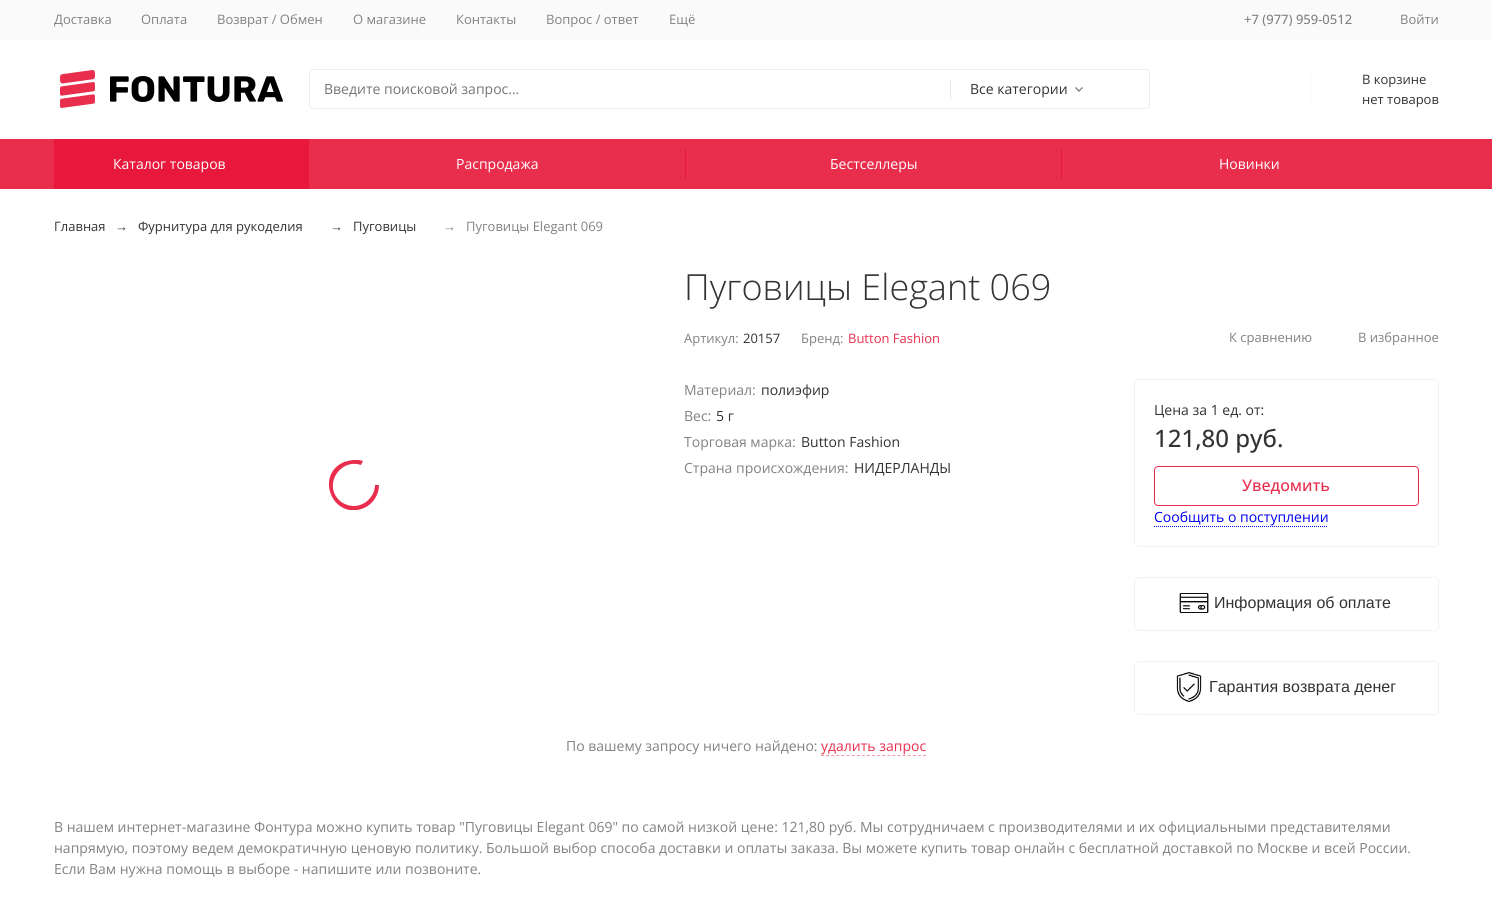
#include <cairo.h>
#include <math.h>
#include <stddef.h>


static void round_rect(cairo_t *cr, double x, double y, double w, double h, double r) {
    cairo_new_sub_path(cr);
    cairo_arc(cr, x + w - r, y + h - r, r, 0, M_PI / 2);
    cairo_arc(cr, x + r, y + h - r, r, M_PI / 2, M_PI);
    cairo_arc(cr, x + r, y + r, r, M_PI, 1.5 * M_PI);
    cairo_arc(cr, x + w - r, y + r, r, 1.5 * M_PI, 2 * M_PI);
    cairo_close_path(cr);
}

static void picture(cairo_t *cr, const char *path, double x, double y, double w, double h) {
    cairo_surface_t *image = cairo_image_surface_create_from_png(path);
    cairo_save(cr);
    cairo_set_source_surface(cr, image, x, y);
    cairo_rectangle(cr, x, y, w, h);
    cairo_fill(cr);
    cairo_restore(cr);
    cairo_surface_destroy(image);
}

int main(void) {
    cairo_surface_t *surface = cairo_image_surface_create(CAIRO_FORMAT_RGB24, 1492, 922);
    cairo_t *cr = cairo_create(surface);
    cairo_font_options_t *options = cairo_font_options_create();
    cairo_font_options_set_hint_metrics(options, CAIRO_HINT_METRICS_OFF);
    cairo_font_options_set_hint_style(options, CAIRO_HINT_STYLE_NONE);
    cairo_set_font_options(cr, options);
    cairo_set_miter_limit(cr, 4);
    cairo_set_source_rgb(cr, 1, 1, 1);
    cairo_paint(cr);
    cairo_set_source_rgb(cr, 0.98, 0.98, 0.98);
    cairo_rectangle(cr, 0, 0, 1492, 40);
    cairo_fill(cr);
    cairo_select_font_face(cr, "Open Sans", CAIRO_FONT_SLANT_NORMAL, CAIRO_FONT_WEIGHT_NORMAL);
    cairo_set_font_size(cr, 13);
    cairo_set_source_rgb(cr, 0.51, 0.51, 0.51);
    cairo_move_to(cr, 54, 24);
    cairo_show_text(cr, "Доставка");
    cairo_move_to(cr, 141, 24);
    cairo_show_text(cr, "Оплата");
    cairo_move_to(cr, 217, 24);
    cairo_show_text(cr, "Возврат / Обмен");
    cairo_move_to(cr, 353, 24);
    cairo_show_text(cr, "О магазине");
    cairo_move_to(cr, 456, 24);
    cairo_show_text(cr, "Контакты");
    cairo_move_to(cr, 546, 24);
    cairo_show_text(cr, "Вопрос / ответ");
    cairo_move_to(cr, 669, 24);
    cairo_show_text(cr, "Ещё");
    cairo_select_font_face(cr, "Open Sans Medium", CAIRO_FONT_SLANT_NORMAL, CAIRO_FONT_WEIGHT_NORMAL);
    cairo_move_to(cr, 1244, 24);
    cairo_show_text(cr, "+7 (977) 959-0512");
    cairo_select_font_face(cr, "Open Sans", CAIRO_FONT_SLANT_NORMAL, CAIRO_FONT_WEIGHT_NORMAL);
    cairo_move_to(cr, 1400, 24);
    cairo_show_text(cr, "Войти");
    picture(cr, "img1.png", 60, 70, 223, 38);
    round_rect(cr, 309.5, 69.5, 840, 39, 3.5);
    cairo_set_source_rgb(cr, 0.929, 0.929, 0.929);
    cairo_set_line_width(cr, 1);
    cairo_stroke(cr);
    cairo_set_font_size(cr, 14);
    cairo_set_source_rgb(cr, 0.459, 0.459, 0.459);
    cairo_move_to(cr, 324, 94);
    cairo_show_text(cr, "Введите поисковой запрос...");
    cairo_set_source_rgb(cr, 0.906, 0.906, 0.906);
    cairo_rectangle(cr, 950, 79, 1, 20);
    cairo_fill(cr);
    cairo_set_source_rgb(cr, 0.2, 0.2, 0.2);
    cairo_move_to(cr, 970, 94);
    cairo_show_text(cr, "Все категории");
    picture(cr, "img2.png", 1075, 87, 8, 5);
    cairo_set_source_rgb(cr, 1, 0.973, 0.976);
    cairo_rectangle(cr, 1250, 69, 1, 40);
    cairo_fill(cr);
    cairo_rectangle(cr, 1311, 69, 1, 41);
    cairo_fill(cr);
    cairo_set_font_size(cr, 13);
    cairo_set_source_rgb(cr, 0.2, 0.2, 0.2);
    cairo_move_to(cr, 1362, 84);
    cairo_show_text(cr, "В корзине");
    cairo_move_to(cr, 1362, 104);
    cairo_show_text(cr, "нет товаров");
    cairo_set_source_rgb(cr, 0.914, 0.18, 0.302);
    cairo_rectangle(cr, 0, 139, 1492, 50);
    cairo_fill(cr);
    cairo_set_source_rgb(cr, 0.906, 0.094, 0.231);
    cairo_rectangle(cr, 54, 139, 255, 50);
    cairo_fill(cr);
    cairo_set_font_size(cr, 14);
    cairo_set_source_rgb(cr, 1, 1, 1);
    cairo_move_to(cr, 113, 169);
    cairo_show_text(cr, "Каталог товаров");
    cairo_move_to(cr, 456, 169);
    cairo_show_text(cr, "Распродажа");
    cairo_set_source_rgb(cr, 0.906, 0.094, 0.231);
    cairo_rectangle(cr, 685, 149, 1, 30);
    cairo_fill(cr);
    cairo_set_source_rgb(cr, 1, 1, 1);
    cairo_move_to(cr, 830, 169);
    cairo_show_text(cr, "Бестселлеры");
    cairo_set_source_rgb(cr, 0.906, 0.094, 0.231);
    cairo_rectangle(cr, 1061, 149, 1, 30);
    cairo_fill(cr);
    cairo_set_source_rgb(cr, 1, 1, 1);
    cairo_move_to(cr, 1219, 169);
    cairo_show_text(cr, "Новинки");
    cairo_set_font_size(cr, 13);
    cairo_set_source_rgb(cr, 0.2, 0.2, 0.2);
    cairo_move_to(cr, 54, 231);
    cairo_show_text(cr, "Главная");
    cairo_select_font_face(cr, "Liberation Sans", CAIRO_FONT_SLANT_NORMAL, CAIRO_FONT_WEIGHT_NORMAL);
    cairo_move_to(cr, 115, 231);
    cairo_show_text(cr, "→");
    cairo_select_font_face(cr, "Open Sans", CAIRO_FONT_SLANT_NORMAL, CAIRO_FONT_WEIGHT_NORMAL);
    cairo_move_to(cr, 138, 231);
    cairo_show_text(cr, "Фурнитура для рукоделия");
    cairo_select_font_face(cr, "Liberation Sans", CAIRO_FONT_SLANT_NORMAL, CAIRO_FONT_WEIGHT_NORMAL);
    cairo_move_to(cr, 330, 231);
    cairo_show_text(cr, "→");
    cairo_select_font_face(cr, "Open Sans", CAIRO_FONT_SLANT_NORMAL, CAIRO_FONT_WEIGHT_NORMAL);
    cairo_move_to(cr, 353, 231);
    cairo_show_text(cr, "Пуговицы");
    cairo_select_font_face(cr, "Liberation Sans", CAIRO_FONT_SLANT_NORMAL, CAIRO_FONT_WEIGHT_NORMAL);
    cairo_set_source_rgb(cr, 0.51, 0.51, 0.51);
    cairo_move_to(cr, 443, 231);
    cairo_show_text(cr, "→");
    cairo_select_font_face(cr, "Open Sans", CAIRO_FONT_SLANT_NORMAL, CAIRO_FONT_WEIGHT_NORMAL);
    cairo_move_to(cr, 466, 231);
    cairo_show_text(cr, "Пуговицы Elegant 069");
    cairo_save(cr);
    cairo_rectangle(cr, 329, 460, 50, 50);
    cairo_clip(cr);
    cairo_set_source_rgb(cr, 0.914, 0.18, 0.302);
    cairo_new_path(cr);
    cairo_move_to(cr, 354, 506);
    cairo_curve_to(cr, 349, 506, 343, 504, 339, 500);
    cairo_curve_to(cr, 323, 484, 341, 458, 361, 465);
    cairo_line_to(cr, 363, 461);
    cairo_curve_to(cr, 357, 459, 350, 460, 344, 462);
    cairo_curve_to(cr, 314, 475, 333, 521, 364, 508);
    cairo_curve_to(cr, 373, 504, 379, 495, 379, 485);
    cairo_line_to(cr, 375, 485);
    cairo_curve_to(cr, 375, 496, 365, 506, 354, 506);
    cairo_close_path(cr);
    cairo_fill(cr);
    cairo_restore(cr);
    cairo_select_font_face(cr, "Open Sans Light", CAIRO_FONT_SLANT_NORMAL, CAIRO_FONT_WEIGHT_NORMAL);
    cairo_set_font_size(cr, 36);
    cairo_set_source_rgb(cr, 0.2, 0.2, 0.2);
    cairo_move_to(cr, 684, 300);
    cairo_show_text(cr, "Пуговицы Elegant 069");
    cairo_select_font_face(cr, "Open Sans", CAIRO_FONT_SLANT_NORMAL, CAIRO_FONT_WEIGHT_NORMAL);
    cairo_set_font_size(cr, 13);
    cairo_set_source_rgb(cr, 0.51, 0.51, 0.51);
    cairo_move_to(cr, 684, 343);
    cairo_show_text(cr, "Артикул:");
    cairo_set_source_rgb(cr, 0.2, 0.2, 0.2);
    cairo_move_to(cr, 743, 343);
    cairo_show_text(cr, "20157");
    cairo_set_source_rgb(cr, 0.51, 0.51, 0.51);
    cairo_move_to(cr, 801, 343);
    cairo_show_text(cr, "Бренд:");
    cairo_set_source_rgb(cr, 0.914, 0.18, 0.302);
    cairo_move_to(cr, 848, 343);
    cairo_show_text(cr, "Button Fashion");
    cairo_set_source_rgb(cr, 0.51, 0.51, 0.51);
    cairo_move_to(cr, 1229, 342);
    cairo_show_text(cr, "К сравнению");
    cairo_move_to(cr, 1358, 342);
    cairo_show_text(cr, "В избранное");
    cairo_set_font_size(cr, 14);
    cairo_move_to(cr, 684, 395);
    cairo_show_text(cr, "Материал:");
    cairo_set_source_rgb(cr, 0.2, 0.2, 0.2);
    cairo_move_to(cr, 761, 395);
    cairo_show_text(cr, "полиэфир");
    cairo_set_source_rgb(cr, 0.51, 0.51, 0.51);
    cairo_move_to(cr, 684, 421);
    cairo_show_text(cr, "Вес:");
    cairo_set_source_rgb(cr, 0.2, 0.2, 0.2);
    cairo_move_to(cr, 716, 421);
    cairo_show_text(cr, "5 г");
    cairo_set_source_rgb(cr, 0.51, 0.51, 0.51);
    cairo_move_to(cr, 684, 447);
    cairo_show_text(cr, "Торговая марка:");
    cairo_set_source_rgb(cr, 0.2, 0.2, 0.2);
    cairo_move_to(cr, 801, 447);
    cairo_show_text(cr, "Button Fashion");
    cairo_set_source_rgb(cr, 0.51, 0.51, 0.51);
    cairo_move_to(cr, 684, 473);
    cairo_show_text(cr, "Страна происхождения:");
    cairo_set_source_rgb(cr, 0.2, 0.2, 0.2);
    cairo_move_to(cr, 854, 473);
    cairo_show_text(cr, "НИДЕРЛАНДЫ");
    round_rect(cr, 1134.5, 379.5, 304, 167, 4.5);
    cairo_set_source_rgb(cr, 0.949, 0.949, 0.949);
    cairo_stroke(cr);
    cairo_set_source_rgb(cr, 0.2, 0.2, 0.2);
    cairo_move_to(cr, 1154, 415);
    cairo_show_text(cr, "Цена за 1 ед. от:");
    cairo_select_font_face(cr, "Open Sans Medium", CAIRO_FONT_SLANT_NORMAL, CAIRO_FONT_WEIGHT_NORMAL);
    cairo_set_font_size(cr, 24);
    cairo_move_to(cr, 1154, 447);
    cairo_show_text(cr, "121,80 руб.");
    round_rect(cr, 1154.5, 466.5, 264, 39, 3.5);
    cairo_set_source_rgb(cr, 0.914, 0.18, 0.302);
    cairo_stroke(cr);
    cairo_set_font_size(cr, 16);
    cairo_move_to(cr, 1242, 491);
    cairo_show_text(cr, "Уведомить");
    cairo_select_font_face(cr, "Open Sans", CAIRO_FONT_SLANT_NORMAL, CAIRO_FONT_WEIGHT_NORMAL);
    cairo_set_font_size(cr, 14);
    cairo_set_source_rgb(cr, 0, 0, 0.933);
    cairo_move_to(cr, 1154, 522);
    cairo_show_text(cr, "Сообщить о поступлении");
    cairo_new_path(cr);
    cairo_move_to(cr, 1154, 526.5);
    cairo_line_to(cr, 1328, 526.5);
    cairo_set_dash(cr, (double[]){1, 1}, 2, 0);
    cairo_stroke(cr);
    round_rect(cr, 1134.5, 577.5, 304, 53, 4.5);
    cairo_set_source_rgb(cr, 0.949, 0.949, 0.949);
    cairo_set_dash(cr, NULL, 0, 0);
    cairo_stroke(cr);
    picture(cr, "img3.png", 1179, 593, 30, 20);
    cairo_select_font_face(cr, "Liberation Sans", CAIRO_FONT_SLANT_NORMAL, CAIRO_FONT_WEIGHT_NORMAL);
    cairo_set_font_size(cr, 16);
    cairo_set_source_rgb(cr, 0.2, 0.2, 0.2);
    cairo_move_to(cr, 1214, 608);
    cairo_show_text(cr, "Информация об оплате");
    round_rect(cr, 1134.5, 661.5, 304, 53, 4.5);
    cairo_set_source_rgb(cr, 0.949, 0.949, 0.949);
    cairo_stroke(cr);
    picture(cr, "img4.png", 1176, 672, 26, 30);
    cairo_set_source_rgb(cr, 0.2, 0.2, 0.2);
    cairo_move_to(cr, 1209, 692);
    cairo_show_text(cr, "Гарантия возврата денег");
    cairo_select_font_face(cr, "Open Sans", CAIRO_FONT_SLANT_NORMAL, CAIRO_FONT_WEIGHT_NORMAL);
    cairo_set_font_size(cr, 14);
    cairo_set_source_rgb(cr, 0.51, 0.51, 0.51);
    cairo_move_to(cr, 566, 751);
    cairo_show_text(cr, "По вашему запросу ничего найдено:");
    cairo_set_source_rgb(cr, 0.914, 0.18, 0.302);
    cairo_move_to(cr, 821, 751);
    cairo_show_text(cr, "удалить запрос");
    cairo_new_path(cr);
    cairo_move_to(cr, 821, 755.5);
    cairo_line_to(cr, 926, 755.5);
    cairo_set_source_rgb(cr, 0.957, 0.592, 0.651);
    cairo_set_dash(cr, (double[]){3, 2.1}, 2, 0);
    cairo_stroke(cr);
    cairo_set_source_rgb(cr, 0.51, 0.51, 0.51);
    cairo_move_to(cr, 54, 832);
    cairo_show_text(cr, "В нашем интернет-магазине Фонтура можно купить товар \"Пуговицы Elegant 069\" по самой низкой цене: 121,80 руб. Мы сотрудничаем с производителями и их официальными представителями");
    cairo_move_to(cr, 54, 853);
    cairo_show_text(cr, "напрямую, поэтому ведем демократичную ценовую политику. Большой выбор способа доставки и оплаты заказа. Вы можете купить товар онлайн с бесплатной доставкой по Москве и всей России.");
    cairo_move_to(cr, 54, 874);
    cairo_show_text(cr, "Если Вам нужна помощь в выборе - напишите или позвоните.");
    cairo_surface_write_to_png(surface, "page.png");
    cairo_font_options_destroy(options);
    cairo_destroy(cr);
    cairo_surface_destroy(surface);
    return 0;
}
